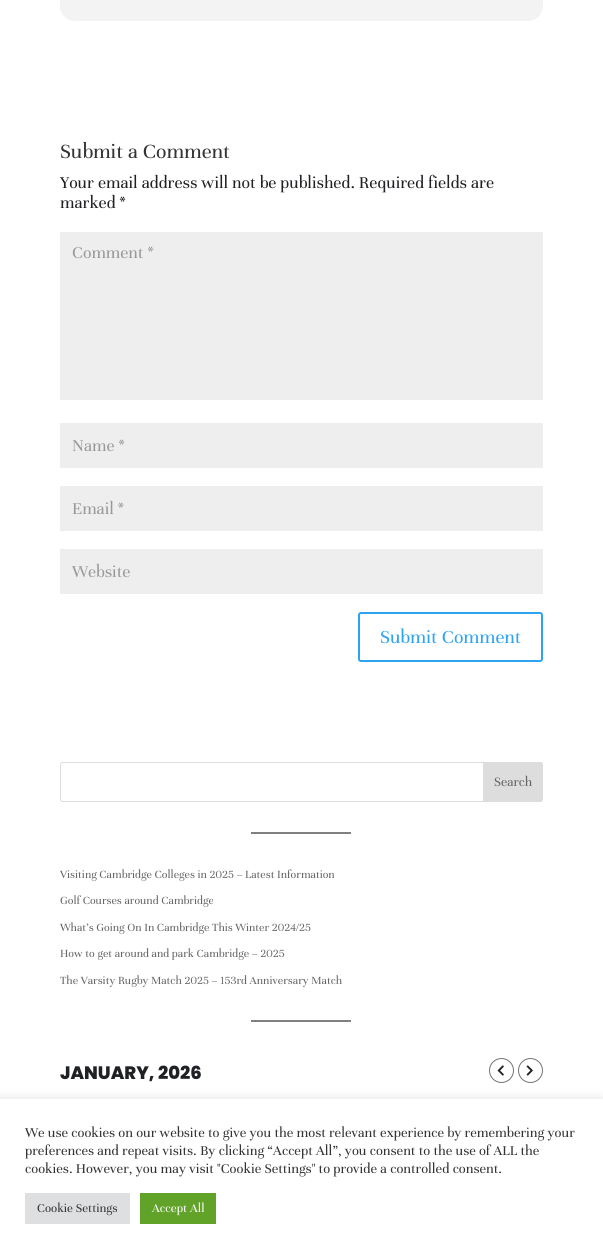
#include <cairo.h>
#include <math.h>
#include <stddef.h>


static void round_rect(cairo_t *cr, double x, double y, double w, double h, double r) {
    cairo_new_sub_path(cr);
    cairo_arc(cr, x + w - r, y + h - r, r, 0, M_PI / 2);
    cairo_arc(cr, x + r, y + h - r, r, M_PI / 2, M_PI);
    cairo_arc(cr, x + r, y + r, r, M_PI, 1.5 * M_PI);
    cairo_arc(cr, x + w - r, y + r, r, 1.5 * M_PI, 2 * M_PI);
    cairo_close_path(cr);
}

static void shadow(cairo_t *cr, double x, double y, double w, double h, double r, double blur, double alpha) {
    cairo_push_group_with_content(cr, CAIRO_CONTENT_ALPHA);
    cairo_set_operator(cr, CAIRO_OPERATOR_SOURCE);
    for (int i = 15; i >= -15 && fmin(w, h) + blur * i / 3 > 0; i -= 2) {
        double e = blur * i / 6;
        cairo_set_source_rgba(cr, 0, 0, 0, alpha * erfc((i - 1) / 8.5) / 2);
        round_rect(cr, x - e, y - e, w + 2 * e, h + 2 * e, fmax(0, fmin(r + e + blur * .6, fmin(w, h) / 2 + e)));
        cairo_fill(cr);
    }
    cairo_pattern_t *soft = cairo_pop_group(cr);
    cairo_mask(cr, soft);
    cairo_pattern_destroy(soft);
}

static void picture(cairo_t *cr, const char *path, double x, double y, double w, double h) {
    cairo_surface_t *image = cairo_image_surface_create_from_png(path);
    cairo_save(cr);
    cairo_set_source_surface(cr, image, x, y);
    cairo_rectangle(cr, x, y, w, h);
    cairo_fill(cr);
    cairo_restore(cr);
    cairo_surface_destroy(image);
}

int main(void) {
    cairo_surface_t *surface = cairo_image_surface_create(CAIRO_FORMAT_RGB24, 603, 1254);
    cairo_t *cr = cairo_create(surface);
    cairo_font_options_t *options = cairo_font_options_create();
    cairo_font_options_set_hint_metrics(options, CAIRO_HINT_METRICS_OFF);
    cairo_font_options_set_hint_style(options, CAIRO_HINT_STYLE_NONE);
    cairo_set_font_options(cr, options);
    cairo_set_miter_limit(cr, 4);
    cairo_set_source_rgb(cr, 1, 1, 1);
    cairo_paint(cr);
    cairo_set_source_rgb(cr, 0.953, 0.953, 0.953);
    round_rect(cr, 60, -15, 483, 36, 15);
    cairo_fill(cr);
    cairo_select_font_face(cr, "Unna", CAIRO_FONT_SLANT_NORMAL, CAIRO_FONT_WEIGHT_NORMAL);
    cairo_set_font_size(cr, 22);
    cairo_set_source_rgb(cr, 0.2, 0.2, 0.2);
    cairo_move_to(cr, 60, 158);
    cairo_show_text(cr, "Submit a Comment");
    cairo_set_font_size(cr, 18);
    cairo_set_source_rgb(cr, 0.125, 0.129, 0.141);
    cairo_move_to(cr, 60, 188);
    cairo_show_text(cr, "Your email address will not be published. Required fields are");
    cairo_move_to(cr, 60, 208);
    cairo_show_text(cr, "marked *");
    cairo_set_source_rgb(cr, 0.933, 0.933, 0.933);
    cairo_rectangle(cr, 60, 232, 483, 168);
    cairo_fill(cr);
    cairo_set_source_rgb(cr, 0.6, 0.6, 0.6);
    cairo_move_to(cr, 72, 258);
    cairo_show_text(cr, "Comment *");
    cairo_set_source_rgb(cr, 0.933, 0.933, 0.933);
    cairo_rectangle(cr, 60, 423, 483, 45);
    cairo_fill(cr);
    cairo_set_source_rgb(cr, 0.6, 0.6, 0.6);
    cairo_move_to(cr, 72, 451);
    cairo_show_text(cr, "Name *");
    cairo_set_source_rgb(cr, 0.933, 0.933, 0.933);
    cairo_rectangle(cr, 60, 486, 483, 45);
    cairo_fill(cr);
    cairo_set_source_rgb(cr, 0.6, 0.6, 0.6);
    cairo_move_to(cr, 72, 514);
    cairo_show_text(cr, "Email *");
    cairo_set_source_rgb(cr, 0.933, 0.933, 0.933);
    cairo_rectangle(cr, 60, 549, 483, 45);
    cairo_fill(cr);
    cairo_set_source_rgb(cr, 0.6, 0.6, 0.6);
    cairo_move_to(cr, 72, 577);
    cairo_show_text(cr, "Website");
    round_rect(cr, 359, 613, 183, 48, 2);
    cairo_set_source_rgb(cr, 0.18, 0.639, 0.949);
    cairo_stroke(cr);
    cairo_set_font_size(cr, 20);
    cairo_move_to(cr, 380, 643);
    cairo_show_text(cr, "Submit Comment");
    round_rect(cr, 60.5, 762.5, 482, 39, 2.5);
    cairo_set_source_rgb(cr, 0.867, 0.867, 0.867);
    cairo_set_line_width(cr, 1);
    cairo_stroke(cr);
    cairo_new_path(cr);
    cairo_move_to(cr, 483.5, 762.5);
    cairo_line_to(cr, 540, 762.5);
    cairo_curve_to(cr, 541.5, 762.5, 542.5, 763.5, 542.5, 765);
    cairo_line_to(cr, 542.5, 799);
    cairo_curve_to(cr, 542.5, 800.5, 541.5, 801.5, 540, 801.5);
    cairo_line_to(cr, 483.5, 801.5);
    cairo_close_path(cr);
    cairo_fill_preserve(cr);
    cairo_stroke(cr);
    cairo_set_font_size(cr, 14);
    cairo_set_source_rgb(cr, 0.4, 0.4, 0.4);
    cairo_move_to(cr, 494, 786);
    cairo_show_text(cr, "Search");
    cairo_set_source_rgb(cr, 0.502, 0.502, 0.502);
    cairo_rectangle(cr, 251, 832, 100, 2);
    cairo_fill(cr);
    cairo_set_font_size(cr, 12);
    cairo_set_source_rgb(cr, 0.4, 0.4, 0.4);
    cairo_move_to(cr, 60, 878);
    cairo_show_text(cr, "Visiting Cambridge Colleges in 2025 – Latest Information");
    cairo_move_to(cr, 60, 904);
    cairo_show_text(cr, "Golf Courses around Cambridge");
    cairo_move_to(cr, 60, 931);
    cairo_show_text(cr, "What’s Going On In Cambridge This Winter 2024/25");
    cairo_move_to(cr, 60, 957);
    cairo_show_text(cr, "How to get around and park Cambridge – 2025");
    cairo_move_to(cr, 60, 984);
    cairo_show_text(cr, "The Varsity Rugby Match 2025 – 153rd Anniversary Match");
    cairo_set_source_rgb(cr, 0.502, 0.502, 0.502);
    cairo_rectangle(cr, 251, 1020, 100, 2);
    cairo_fill(cr);
    cairo_select_font_face(cr, "Poppins ExtraBold", CAIRO_FONT_SLANT_NORMAL, CAIRO_FONT_WEIGHT_NORMAL);
    cairo_set_font_size(cr, 18);
    cairo_set_source_rgb(cr, 0.125, 0.129, 0.141);
    cairo_move_to(cr, 60, 1079);
    cairo_show_text(cr, "JANUARY, 2026");
    cairo_new_path(cr);
    cairo_arc(cr, 501.5, 1070.5, 12, 0, 2 * M_PI);
    cairo_set_source_rgb(cr, 0.451, 0.451, 0.451);
    cairo_stroke(cr);
    picture(cr, "img1.png", 497, 1065, 7, 11);
    cairo_arc(cr, 530.5, 1070.5, 12, 0, 2 * M_PI);
    cairo_stroke(cr);
    picture(cr, "img2.png", 526, 1065, 7, 11);
    cairo_set_source_rgb(cr, 0.675, 0.671, 0.671);
    shadow(cr, 0, 1098, 603, 155, 0, 5, 0.3);
    cairo_set_source_rgb(cr, 1, 1, 1);
    cairo_rectangle(cr, 0, 1099, 603, 155);
    cairo_fill(cr);
    cairo_select_font_face(cr, "Unna", CAIRO_FONT_SLANT_NORMAL, CAIRO_FONT_WEIGHT_NORMAL);
    cairo_set_font_size(cr, 14.65);
    cairo_set_source_rgb(cr, 0.2, 0.2, 0.2);
    cairo_move_to(cr, 25, 1137);
    cairo_show_text(cr, "We use cookies on our website to give you the most relevant experience by remembering your");
    cairo_move_to(cr, 25, 1155);
    cairo_show_text(cr, "preferences and repeat visits. By clicking “Accept All”, you consent to the use of ALL the");
    cairo_move_to(cr, 25, 1173);
    cairo_show_text(cr, "cookies. However, you may visit \"Cookie Settings\" to provide a controlled consent.");
    cairo_set_source_rgb(cr, 0.871, 0.875, 0.878);
    cairo_rectangle(cr, 25, 1193, 105, 31);
    cairo_fill(cr);
    cairo_set_font_size(cr, 13);
    cairo_set_source_rgb(cr, 0.2, 0.2, 0.2);
    cairo_move_to(cr, 37, 1212);
    cairo_show_text(cr, "Cookie Settings");
    cairo_set_source_rgb(cr, 0.38, 0.635, 0.161);
    cairo_rectangle(cr, 140, 1193, 76, 31);
    cairo_fill(cr);
    cairo_set_source_rgb(cr, 1, 1, 1);
    cairo_move_to(cr, 152, 1212);
    cairo_show_text(cr, "Accept All");
    cairo_surface_write_to_png(surface, "page.png");
    cairo_font_options_destroy(options);
    cairo_destroy(cr);
    cairo_surface_destroy(surface);
    return 0;
}
